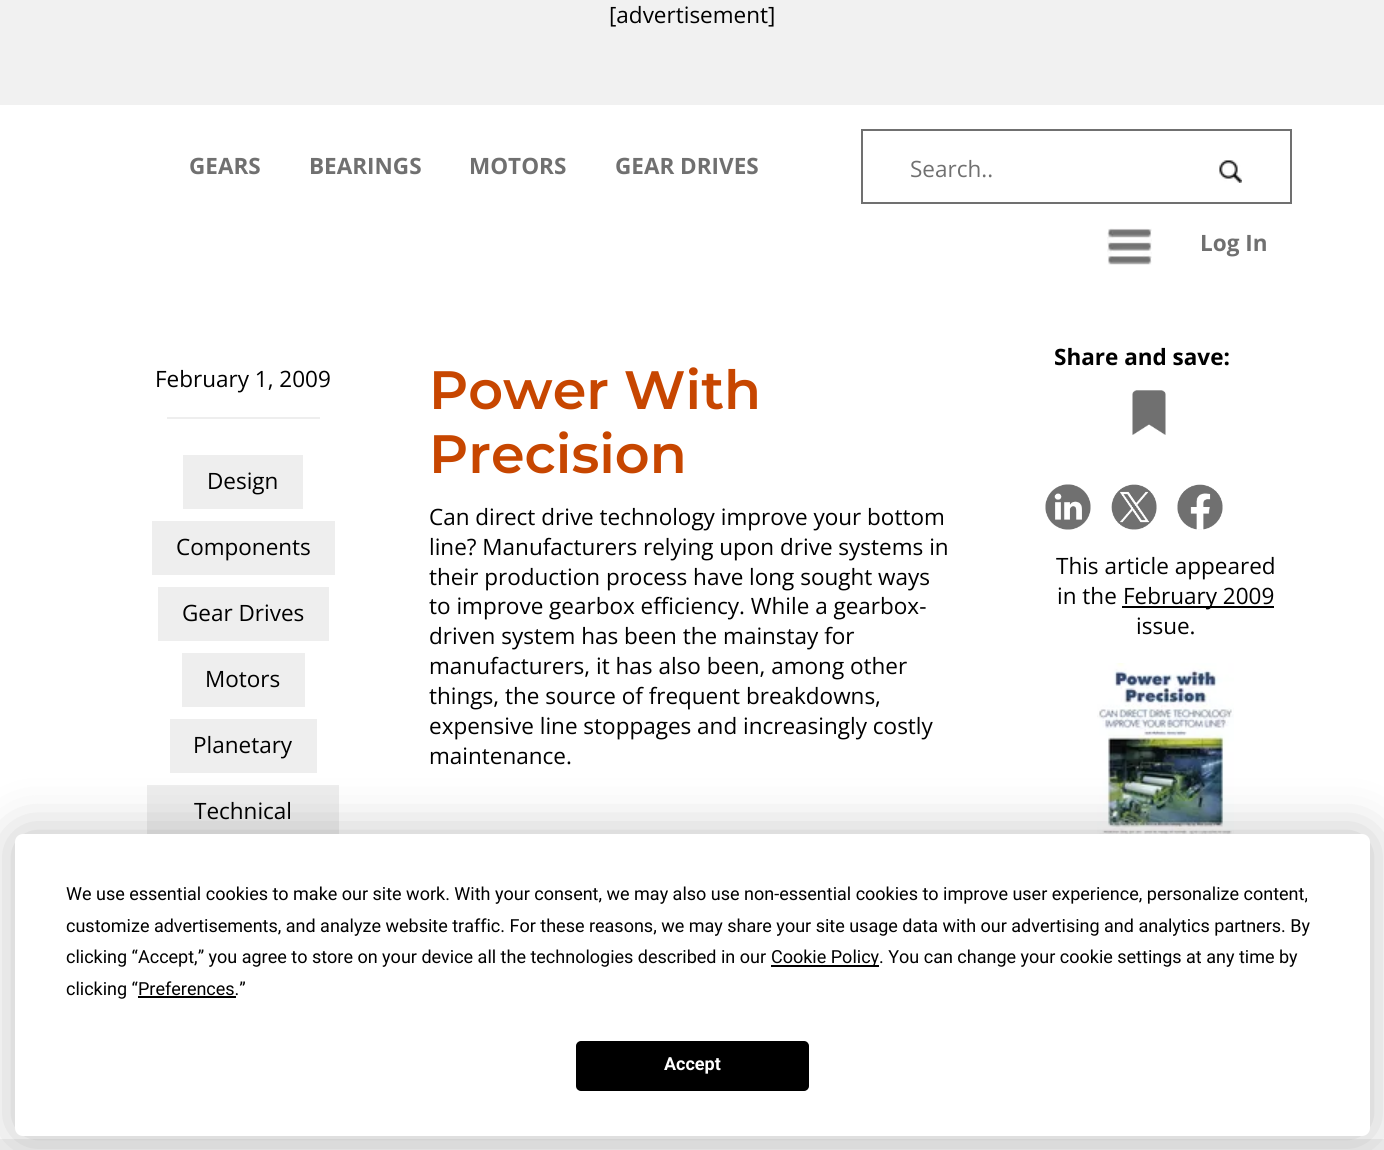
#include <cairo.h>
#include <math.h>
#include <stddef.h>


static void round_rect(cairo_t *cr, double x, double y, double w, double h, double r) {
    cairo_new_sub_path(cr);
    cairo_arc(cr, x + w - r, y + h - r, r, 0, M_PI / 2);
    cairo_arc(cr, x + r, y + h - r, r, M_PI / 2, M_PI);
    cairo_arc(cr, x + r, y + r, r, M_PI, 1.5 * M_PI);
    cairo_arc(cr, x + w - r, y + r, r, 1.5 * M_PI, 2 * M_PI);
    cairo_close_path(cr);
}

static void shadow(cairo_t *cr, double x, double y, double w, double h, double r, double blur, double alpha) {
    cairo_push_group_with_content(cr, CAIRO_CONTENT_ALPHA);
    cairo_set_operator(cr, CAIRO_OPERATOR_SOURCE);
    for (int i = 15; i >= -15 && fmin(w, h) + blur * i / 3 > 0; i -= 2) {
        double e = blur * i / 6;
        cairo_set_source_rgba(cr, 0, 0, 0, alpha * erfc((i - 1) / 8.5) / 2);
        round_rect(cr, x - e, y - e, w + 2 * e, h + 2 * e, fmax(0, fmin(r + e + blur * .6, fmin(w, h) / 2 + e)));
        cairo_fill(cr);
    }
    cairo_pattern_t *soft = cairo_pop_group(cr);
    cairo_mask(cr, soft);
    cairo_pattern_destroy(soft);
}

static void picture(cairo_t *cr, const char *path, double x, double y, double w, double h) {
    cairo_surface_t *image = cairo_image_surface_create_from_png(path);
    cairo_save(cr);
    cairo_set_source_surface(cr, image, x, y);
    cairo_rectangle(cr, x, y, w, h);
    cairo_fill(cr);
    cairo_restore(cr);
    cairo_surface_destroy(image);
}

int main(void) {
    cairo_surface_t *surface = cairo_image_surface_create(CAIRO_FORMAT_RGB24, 1384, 1150);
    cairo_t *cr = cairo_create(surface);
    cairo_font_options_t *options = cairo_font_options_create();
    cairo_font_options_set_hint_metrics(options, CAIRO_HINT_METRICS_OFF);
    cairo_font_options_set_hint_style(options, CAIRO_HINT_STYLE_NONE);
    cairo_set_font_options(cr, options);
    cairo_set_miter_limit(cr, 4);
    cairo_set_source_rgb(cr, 1, 1, 1);
    cairo_paint(cr);
    cairo_set_source_rgb(cr, 0.945, 0.945, 0.945);
    cairo_rectangle(cr, 0, 0, 1384, 105);
    cairo_fill(cr);
    cairo_select_font_face(cr, "Open Sans", CAIRO_FONT_SLANT_NORMAL, CAIRO_FONT_WEIGHT_NORMAL);
    cairo_set_font_size(cr, 22.5);
    cairo_set_source_rgb(cr, 0, 0, 0);
    cairo_move_to(cr, 609, 23);
    cairo_show_text(cr, "[advertisement]");
    cairo_select_font_face(cr, "Open Sans", CAIRO_FONT_SLANT_NORMAL, CAIRO_FONT_WEIGHT_BOLD);
    cairo_set_source_rgb(cr, 0.439, 0.439, 0.439);
    cairo_move_to(cr, 189, 174);
    cairo_show_text(cr, "GEARS");
    cairo_move_to(cr, 309, 174);
    cairo_show_text(cr, "BEARINGS");
    cairo_move_to(cr, 469, 174);
    cairo_show_text(cr, "MOTORS");
    cairo_move_to(cr, 615, 174);
    cairo_show_text(cr, "GEAR DRIVES");
    cairo_rectangle(cr, 862, 130, 429, 73);
    cairo_stroke(cr);
    cairo_select_font_face(cr, "Open Sans", CAIRO_FONT_SLANT_NORMAL, CAIRO_FONT_WEIGHT_NORMAL);
    cairo_move_to(cr, 910, 177);
    cairo_show_text(cr, "Search..");
    picture(cr, "img1.png", 1219, 160, 23, 23);
    picture(cr, "img2.png", 1107, 228, 45, 37);
    cairo_select_font_face(cr, "Open Sans", CAIRO_FONT_SLANT_NORMAL, CAIRO_FONT_WEIGHT_BOLD);
    cairo_move_to(cr, 1200, 251);
    cairo_show_text(cr, "Log In");
    cairo_select_font_face(cr, "Open Sans", CAIRO_FONT_SLANT_NORMAL, CAIRO_FONT_WEIGHT_NORMAL);
    cairo_set_source_rgb(cr, 0, 0, 0);
    cairo_move_to(cr, 155, 387);
    cairo_show_text(cr, "February 1, 2009");
    cairo_set_source_rgb(cr, 0.933, 0.933, 0.933);
    cairo_rectangle(cr, 167, 417, 153, 2);
    cairo_fill(cr);
    cairo_rectangle(cr, 183, 455, 120, 54);
    cairo_fill(cr);
    cairo_set_source_rgb(cr, 0, 0, 0);
    cairo_move_to(cr, 207, 489);
    cairo_show_text(cr, "Design");
    cairo_set_source_rgb(cr, 0.933, 0.933, 0.933);
    cairo_rectangle(cr, 152, 521, 183, 54);
    cairo_fill(cr);
    cairo_set_source_rgb(cr, 0, 0, 0);
    cairo_move_to(cr, 176, 555);
    cairo_show_text(cr, "Components");
    cairo_set_source_rgb(cr, 0.933, 0.933, 0.933);
    cairo_rectangle(cr, 158, 587, 171, 54);
    cairo_fill(cr);
    cairo_set_source_rgb(cr, 0, 0, 0);
    cairo_move_to(cr, 182, 621);
    cairo_show_text(cr, "Gear Drives");
    cairo_set_source_rgb(cr, 0.933, 0.933, 0.933);
    cairo_rectangle(cr, 182, 653, 123, 54);
    cairo_fill(cr);
    cairo_set_source_rgb(cr, 0, 0, 0);
    cairo_move_to(cr, 205, 687);
    cairo_show_text(cr, "Motors");
    cairo_set_source_rgb(cr, 0.933, 0.933, 0.933);
    cairo_rectangle(cr, 170, 719, 147, 54);
    cairo_fill(cr);
    cairo_set_source_rgb(cr, 0, 0, 0);
    cairo_move_to(cr, 193, 753);
    cairo_show_text(cr, "Planetary");
    cairo_set_source_rgb(cr, 0.933, 0.933, 0.933);
    cairo_rectangle(cr, 147, 785, 192, 49);
    cairo_fill(cr);
    cairo_set_source_rgb(cr, 0, 0, 0);
    cairo_move_to(cr, 194, 819);
    cairo_show_text(cr, "Technical");
    cairo_select_font_face(cr, "Montserrat SemiBold", CAIRO_FONT_SLANT_NORMAL, CAIRO_FONT_WEIGHT_NORMAL);
    cairo_set_font_size(cr, 54);
    cairo_set_source_rgb(cr, 0.78, 0.275, 0);
    cairo_move_to(cr, 429, 409);
    cairo_show_text(cr, "Power With");
    cairo_move_to(cr, 429, 473);
    cairo_show_text(cr, "Precision");
    cairo_select_font_face(cr, "Open Sans", CAIRO_FONT_SLANT_NORMAL, CAIRO_FONT_WEIGHT_NORMAL);
    cairo_set_font_size(cr, 22.5);
    cairo_set_source_rgb(cr, 0, 0, 0);
    cairo_move_to(cr, 429, 525);
    cairo_show_text(cr, "Can direct drive technology improve your bottom");
    cairo_move_to(cr, 429, 555);
    cairo_show_text(cr, "line? Manufacturers relying upon drive systems in");
    cairo_move_to(cr, 429, 585);
    cairo_show_text(cr, "their production process have long sought ways");
    cairo_move_to(cr, 429, 614);
    cairo_show_text(cr, "to improve gearbox efficiency. While a gearbox-");
    cairo_move_to(cr, 429, 644);
    cairo_show_text(cr, "driven system has been the mainstay for");
    cairo_move_to(cr, 429, 674);
    cairo_show_text(cr, "manufacturers, it has also been, among other");
    cairo_move_to(cr, 429, 704);
    cairo_show_text(cr, "things, the source of frequent breakdowns,");
    cairo_move_to(cr, 429, 734);
    cairo_show_text(cr, "expensive line stoppages and increasingly costly");
    cairo_move_to(cr, 429, 764);
    cairo_show_text(cr, "maintenance.");
    cairo_select_font_face(cr, "Open Sans", CAIRO_FONT_SLANT_NORMAL, CAIRO_FONT_WEIGHT_BOLD);
    cairo_move_to(cr, 1054, 365);
    cairo_show_text(cr, "Share and save:");
    picture(cr, "img3.png", 1132, 390, 34, 45);
    picture(cr, "img4.png", 1045, 484, 46, 46);
    picture(cr, "img5.png", 1111, 484, 46, 46);
    picture(cr, "img6.png", 1177, 484, 46, 46);
    cairo_select_font_face(cr, "Open Sans", CAIRO_FONT_SLANT_NORMAL, CAIRO_FONT_WEIGHT_NORMAL);
    cairo_move_to(cr, 1056, 574);
    cairo_show_text(cr, "This article appeared");
    cairo_move_to(cr, 1057, 604);
    cairo_show_text(cr, "in the");
    cairo_rectangle(cr, 1122, 606, 152, 2);
    cairo_fill(cr);
    cairo_move_to(cr, 1123, 604);
    cairo_show_text(cr, "February 2009");
    cairo_move_to(cr, 1136, 634);
    cairo_show_text(cr, "issue.");
    picture(cr, "img7.png", 1097, 663, 137, 171);
    cairo_set_source_rgb(cr, 0.945, 0.945, 0.945);
    cairo_rectangle(cr, 0, 1139, 1384, 11);
    cairo_fill(cr);
    cairo_set_source_rgb(cr, 0, 0, 0);
    shadow(cr, 15, 834, 1355, 302, 8, 26, 0.25);
    cairo_set_source_rgb(cr, 1, 1, 1);
    round_rect(cr, 15, 834, 1355, 302, 8);
    cairo_fill(cr);
    cairo_select_font_face(cr, "Roboto", CAIRO_FONT_SLANT_NORMAL, CAIRO_FONT_WEIGHT_NORMAL);
    cairo_set_font_size(cr, 18);
    cairo_set_source_rgb(cr, 0, 0, 0);
    cairo_move_to(cr, 66, 900);
    cairo_show_text(cr, "We use essential cookies to make our site work. With your consent, we may also use non-essential cookies to improve user experience, personalize content,");
    cairo_move_to(cr, 66, 932);
    cairo_show_text(cr, "customize advertisements, and analyze website traffic. For these reasons, we may share your site usage data with our advertising and analytics partners. By");
    cairo_move_to(cr, 66, 963);
    cairo_show_text(cr, "clicking “Accept,” you agree to store on your device all the technologies described in our");
    cairo_rectangle(cr, 771, 965, 108, 2);
    cairo_fill(cr);
    cairo_move_to(cr, 771, 963);
    cairo_show_text(cr, "Cookie Policy. You can change your cookie settings at any time by");
    cairo_move_to(cr, 66, 995);
    cairo_show_text(cr, "clicking “Preferences.”");
    cairo_rectangle(cr, 138, 996, 98, 2);
    cairo_fill(cr);
    round_rect(cr, 577, 1042, 231, 48, 4);
    cairo_fill_preserve(cr);
    cairo_stroke(cr);
    cairo_select_font_face(cr, "Roboto", CAIRO_FONT_SLANT_NORMAL, CAIRO_FONT_WEIGHT_BOLD);
    cairo_set_source_rgb(cr, 1, 1, 1);
    cairo_move_to(cr, 664, 1070);
    cairo_show_text(cr, "Accept");
    cairo_surface_write_to_png(surface, "page.png");
    cairo_font_options_destroy(options);
    cairo_destroy(cr);
    cairo_surface_destroy(surface);
    return 0;
}
